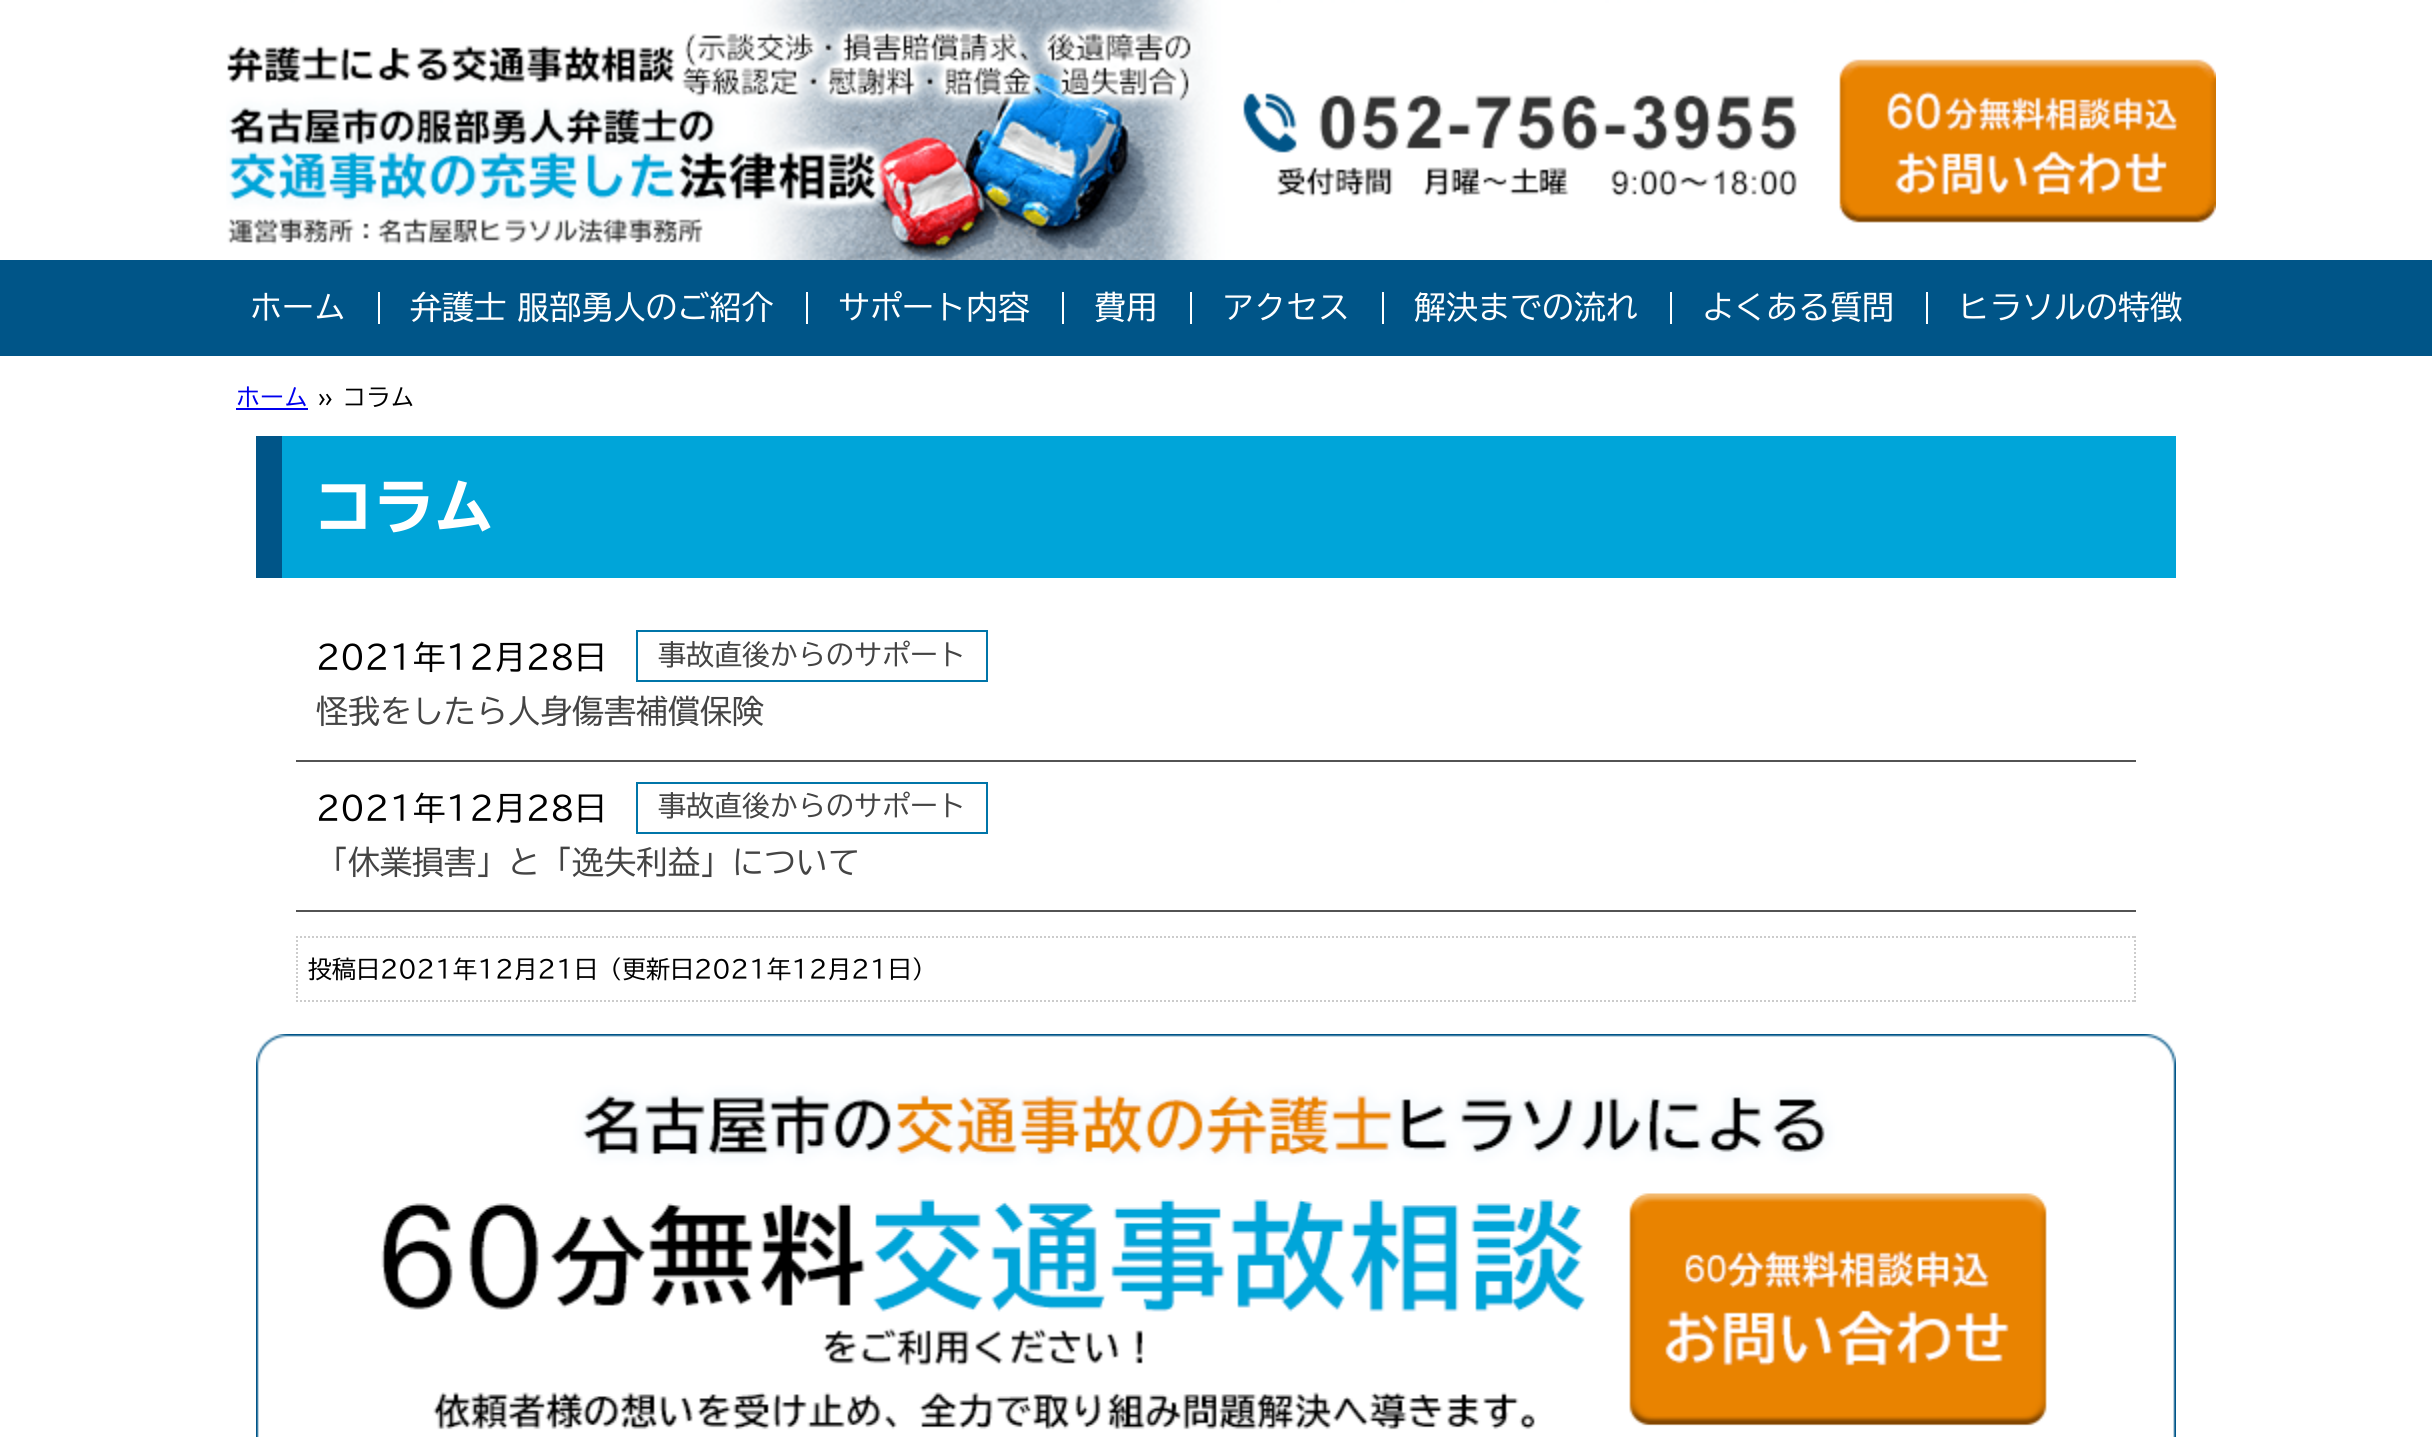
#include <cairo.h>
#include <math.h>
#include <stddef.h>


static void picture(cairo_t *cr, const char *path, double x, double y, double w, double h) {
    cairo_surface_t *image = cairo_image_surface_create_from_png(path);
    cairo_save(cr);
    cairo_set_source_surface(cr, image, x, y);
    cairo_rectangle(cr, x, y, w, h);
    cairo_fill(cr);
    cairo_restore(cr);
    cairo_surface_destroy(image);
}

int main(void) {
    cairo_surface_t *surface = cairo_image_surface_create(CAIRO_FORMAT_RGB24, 2432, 1437);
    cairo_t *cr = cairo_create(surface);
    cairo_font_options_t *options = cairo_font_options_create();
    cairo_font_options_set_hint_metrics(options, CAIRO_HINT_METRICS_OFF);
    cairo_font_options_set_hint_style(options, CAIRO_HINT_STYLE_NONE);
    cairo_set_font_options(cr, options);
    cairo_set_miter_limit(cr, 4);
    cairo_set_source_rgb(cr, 1, 1, 1);
    cairo_paint(cr);
    picture(cr, "img1.png", 226, 0, 1990, 260);
    cairo_set_source_rgb(cr, 0, 0.333, 0.533);
    cairo_rectangle(cr, 0, 260, 2432, 96);
    cairo_fill(cr);
    cairo_select_font_face(cr, "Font", CAIRO_FONT_SLANT_NORMAL, CAIRO_FONT_WEIGHT_NORMAL);
    cairo_set_font_size(cr, 32);
    cairo_set_source_rgb(cr, 1, 1, 1);
    cairo_move_to(cr, 250, 319);
    cairo_show_text(cr, "ホーム");
    cairo_rectangle(cr, 378, 292, 2, 32);
    cairo_fill(cr);
    cairo_move_to(cr, 410, 319);
    cairo_show_text(cr, "弁護士 服部勇人のご紹介");
    cairo_rectangle(cr, 806, 292, 2, 32);
    cairo_fill(cr);
    cairo_move_to(cr, 838, 319);
    cairo_show_text(cr, "サポート内容");
    cairo_rectangle(cr, 1062, 292, 2, 32);
    cairo_fill(cr);
    cairo_move_to(cr, 1094, 319);
    cairo_show_text(cr, "費用");
    cairo_rectangle(cr, 1190, 292, 2, 32);
    cairo_fill(cr);
    cairo_move_to(cr, 1222, 319);
    cairo_show_text(cr, "アクセス");
    cairo_rectangle(cr, 1382, 292, 2, 32);
    cairo_fill(cr);
    cairo_move_to(cr, 1414, 319);
    cairo_show_text(cr, "解決までの流れ");
    cairo_rectangle(cr, 1670, 292, 2, 32);
    cairo_fill(cr);
    cairo_move_to(cr, 1702, 319);
    cairo_show_text(cr, "よくある質問");
    cairo_rectangle(cr, 1926, 292, 2, 32);
    cairo_fill(cr);
    cairo_move_to(cr, 1958, 319);
    cairo_show_text(cr, "ヒラソルの特徴");
    cairo_set_font_size(cr, 24);
    cairo_set_source_rgb(cr, 0, 0, 0.933);
    cairo_move_to(cr, 236, 406);
    cairo_show_text(cr, "ホーム");
    cairo_rectangle(cr, 236, 408, 72, 2);
    cairo_fill(cr);
    cairo_set_source_rgb(cr, 0, 0, 0);
    cairo_move_to(cr, 317, 406);
    cairo_show_text(cr, "» コラム");
    cairo_set_source_rgb(cr, 0, 0.647, 0.851);
    cairo_rectangle(cr, 282, 436, 1894, 142);
    cairo_fill(cr);
    cairo_set_source_rgb(cr, 0, 0.333, 0.533);
    cairo_rectangle(cr, 256, 436, 26, 142);
    cairo_fill(cr);
    cairo_select_font_face(cr, "Font ExtraBold", CAIRO_FONT_SLANT_NORMAL, CAIRO_FONT_WEIGHT_NORMAL);
    cairo_set_font_size(cr, 60);
    cairo_set_source_rgb(cr, 1, 1, 1);
    cairo_move_to(cr, 314, 529);
    cairo_show_text(cr, "コラム");
    cairo_set_source_rgb(cr, 0.325, 0.325, 0.325);
    cairo_rectangle(cr, 296, 760, 1840, 2);
    cairo_fill(cr);
    cairo_select_font_face(cr, "Font", CAIRO_FONT_SLANT_NORMAL, CAIRO_FONT_WEIGHT_NORMAL);
    cairo_set_font_size(cr, 32);
    cairo_set_source_rgb(cr, 0, 0, 0);
    cairo_move_to(cr, 316, 669);
    cairo_show_text(cr, "2021年12月28日");
    cairo_rectangle(cr, 637, 631, 350, 50);
    cairo_set_source_rgb(cr, 0, 0.459, 0.663);
    cairo_stroke(cr);
    cairo_set_font_size(cr, 28);
    cairo_set_source_rgb(cr, 0.267, 0.267, 0.267);
    cairo_move_to(cr, 658, 665);
    cairo_show_text(cr, "事故直後からのサポート");
    cairo_set_font_size(cr, 32);
    cairo_move_to(cr, 316, 723);
    cairo_show_text(cr, "怪我をしたら人身傷害補償保険");
    cairo_set_source_rgb(cr, 0.325, 0.325, 0.325);
    cairo_rectangle(cr, 296, 910, 1840, 2);
    cairo_fill(cr);
    cairo_set_source_rgb(cr, 0, 0, 0);
    cairo_move_to(cr, 316, 820);
    cairo_show_text(cr, "2021年12月28日");
    cairo_rectangle(cr, 637, 783, 350, 50);
    cairo_set_source_rgb(cr, 0, 0.459, 0.663);
    cairo_stroke(cr);
    cairo_set_font_size(cr, 28);
    cairo_set_source_rgb(cr, 0.267, 0.267, 0.267);
    cairo_move_to(cr, 658, 816);
    cairo_show_text(cr, "事故直後からのサポート");
    cairo_set_font_size(cr, 32);
    cairo_move_to(cr, 316, 874);
    cairo_show_text(cr, "「休業損害」と「逸失利益」について");
    cairo_new_path(cr);
    cairo_move_to(cr, 296, 937);
    cairo_line_to(cr, 2136, 937);
    cairo_set_source_rgb(cr, 0.8, 0.8, 0.8);
    cairo_set_dash(cr, (double[]){2, 2}, 2, 0);
    cairo_stroke(cr);
    cairo_new_path(cr);
    cairo_move_to(cr, 2135, 936);
    cairo_line_to(cr, 2135, 1002);
    cairo_stroke(cr);
    cairo_new_path(cr);
    cairo_move_to(cr, 296, 1001);
    cairo_line_to(cr, 2136, 1001);
    cairo_stroke(cr);
    cairo_new_path(cr);
    cairo_move_to(cr, 297, 936);
    cairo_line_to(cr, 297, 1002);
    cairo_stroke(cr);
    cairo_set_font_size(cr, 24);
    cairo_set_source_rgb(cr, 0, 0, 0);
    cairo_move_to(cr, 308, 978);
    cairo_show_text(cr, "投稿日2021年12月21日（更新日2021年12月21日）");
    picture(cr, "img2.png", 256, 1034, 1920, 403);
    cairo_surface_write_to_png(surface, "page.png");
    cairo_font_options_destroy(options);
    cairo_destroy(cr);
    cairo_surface_destroy(surface);
    return 0;
}
